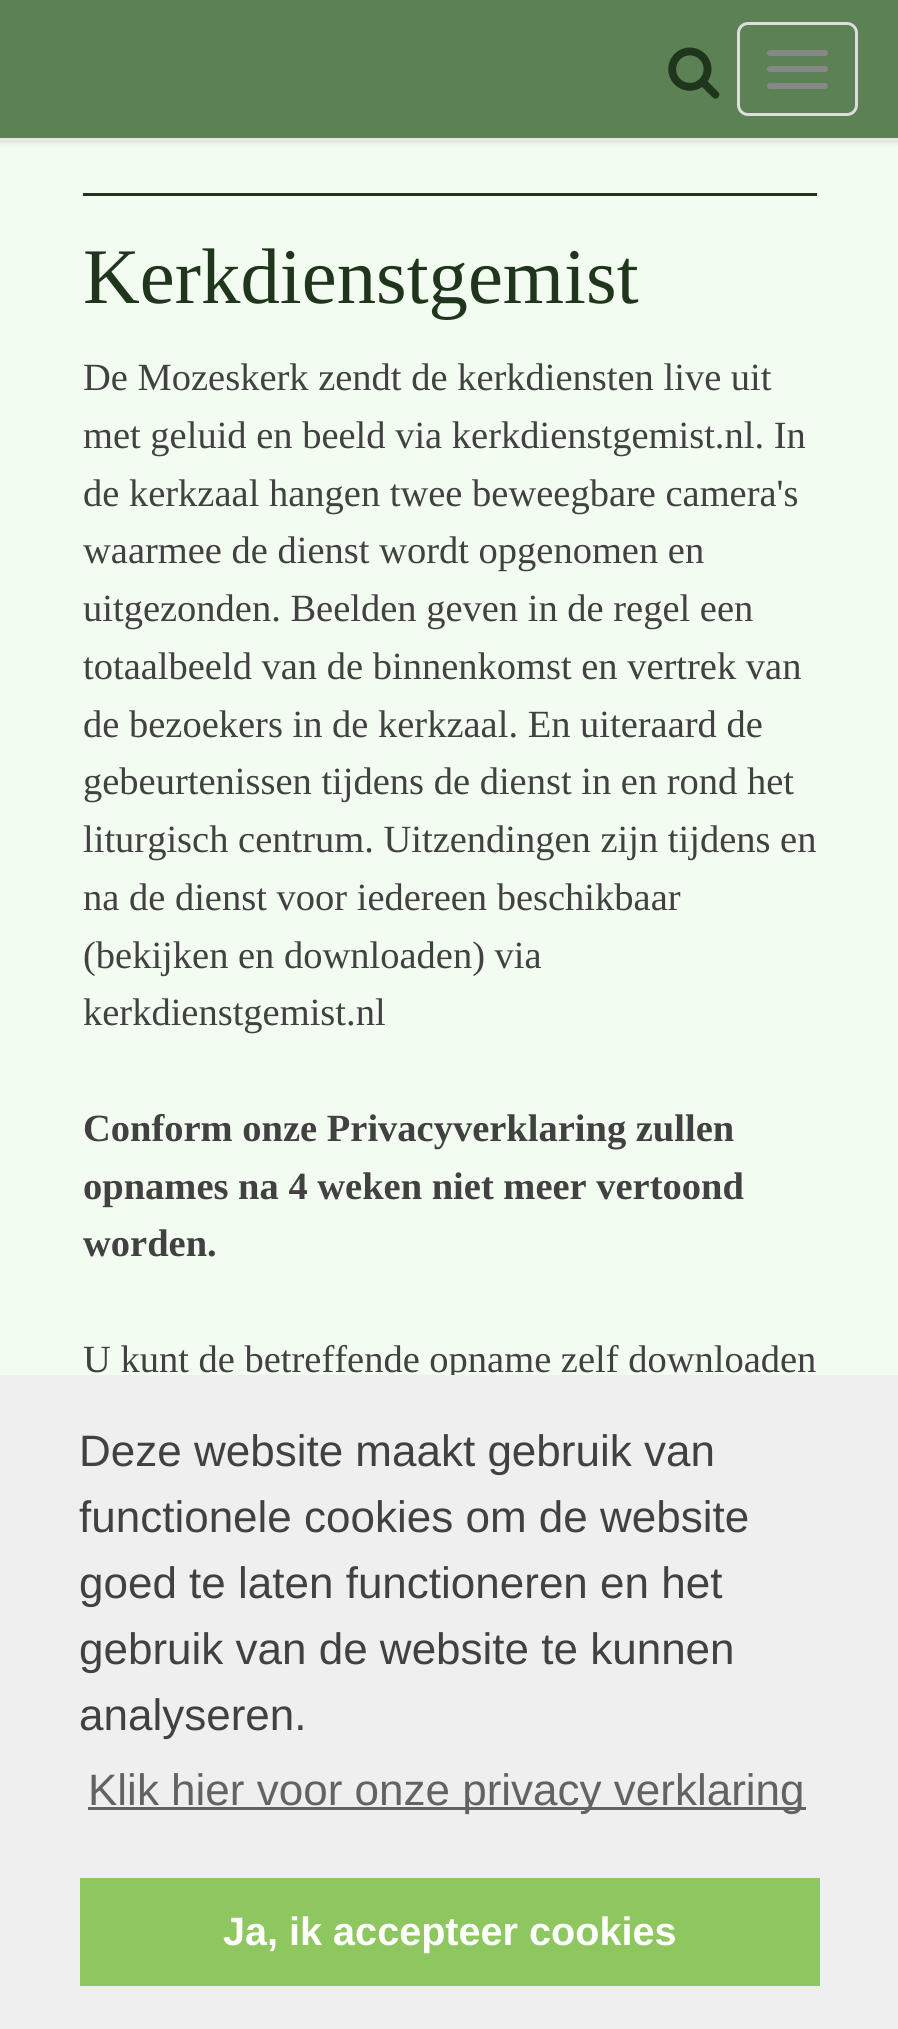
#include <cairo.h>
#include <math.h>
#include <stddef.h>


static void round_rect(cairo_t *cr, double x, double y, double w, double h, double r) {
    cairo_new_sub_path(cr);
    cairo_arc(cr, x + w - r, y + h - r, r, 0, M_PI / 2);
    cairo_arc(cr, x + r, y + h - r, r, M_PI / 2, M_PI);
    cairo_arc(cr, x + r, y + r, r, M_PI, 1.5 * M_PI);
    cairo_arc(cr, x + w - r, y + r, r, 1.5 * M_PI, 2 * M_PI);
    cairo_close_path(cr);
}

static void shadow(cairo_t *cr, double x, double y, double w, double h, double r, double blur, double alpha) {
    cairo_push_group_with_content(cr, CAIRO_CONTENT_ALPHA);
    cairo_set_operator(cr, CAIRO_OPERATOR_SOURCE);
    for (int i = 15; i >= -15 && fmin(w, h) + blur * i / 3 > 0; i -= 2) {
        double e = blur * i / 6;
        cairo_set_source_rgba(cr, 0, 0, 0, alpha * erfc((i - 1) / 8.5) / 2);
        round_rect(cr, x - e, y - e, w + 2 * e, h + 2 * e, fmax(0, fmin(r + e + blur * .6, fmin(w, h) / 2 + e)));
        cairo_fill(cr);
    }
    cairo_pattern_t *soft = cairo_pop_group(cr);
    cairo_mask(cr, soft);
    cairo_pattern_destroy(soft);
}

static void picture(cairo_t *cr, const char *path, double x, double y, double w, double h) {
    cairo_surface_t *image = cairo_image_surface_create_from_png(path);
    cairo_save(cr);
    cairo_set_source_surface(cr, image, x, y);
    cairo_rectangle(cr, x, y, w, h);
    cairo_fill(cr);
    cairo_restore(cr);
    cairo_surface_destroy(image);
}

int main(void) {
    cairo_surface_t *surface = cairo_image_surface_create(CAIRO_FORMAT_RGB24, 898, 2029);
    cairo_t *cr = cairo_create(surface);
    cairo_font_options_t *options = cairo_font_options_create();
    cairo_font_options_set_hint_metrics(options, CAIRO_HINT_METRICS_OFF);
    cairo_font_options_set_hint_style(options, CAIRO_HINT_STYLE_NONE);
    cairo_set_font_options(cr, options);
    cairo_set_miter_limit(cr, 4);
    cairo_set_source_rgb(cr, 0.953, 0.988, 0.941);
    cairo_paint(cr);
    cairo_set_source_rgb(cr, 0, 0, 0);
    shadow(cr, 0, 0, 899, 140, 0, 4, 0.22);
    cairo_set_source_rgb(cr, 0.361, 0.506, 0.329);
    cairo_rectangle(cr, 0, 0, 898, 138);
    cairo_fill(cr);
    cairo_set_source_rgb(cr, 0.906, 0.906, 0.906);
    cairo_rectangle(cr, 0, 138, 898, 3);
    cairo_fill(cr);
    picture(cr, "img1.png", 668, 47, 52, 52);
    round_rect(cr, 738.5, 23.5, 118, 91, 9.5);
    cairo_set_source_rgb(cr, 0.867, 0.867, 0.867);
    cairo_set_line_width(cr, 3);
    cairo_stroke(cr);
    cairo_set_source_rgb(cr, 0.533, 0.533, 0.533);
    round_rect(cr, 767, 50, 61, 6, 3);
    cairo_fill(cr);
    round_rect(cr, 767, 66, 61, 6, 3);
    cairo_fill(cr);
    round_rect(cr, 767, 83, 61, 6, 3);
    cairo_fill(cr);
    cairo_set_source_rgb(cr, 0.125, 0.212, 0.11);
    cairo_rectangle(cr, 83, 193, 734, 3);
    cairo_fill(cr);
    cairo_select_font_face(cr, "Liberation Serif", CAIRO_FONT_SLANT_NORMAL, CAIRO_FONT_WEIGHT_NORMAL);
    cairo_set_font_size(cr, 78.75);
    cairo_move_to(cr, 83, 303);
    cairo_show_text(cr, "Kerkdienstgemist");
    cairo_set_font_size(cr, 38.5);
    cairo_set_source_rgb(cr, 0.255, 0.255, 0.255);
    cairo_move_to(cr, 83, 390);
    cairo_show_text(cr, "De Mozeskerk zendt de kerkdiensten live uit");
    cairo_move_to(cr, 83, 448);
    cairo_show_text(cr, "met geluid en beeld via kerkdienstgemist.nl. In");
    cairo_move_to(cr, 83, 506);
    cairo_show_text(cr, "de kerkzaal hangen twee beweegbare camera's");
    cairo_move_to(cr, 83, 563);
    cairo_show_text(cr, "waarmee de dienst wordt opgenomen en");
    cairo_move_to(cr, 83, 621);
    cairo_show_text(cr, "uitgezonden. Beelden geven in de regel een");
    cairo_move_to(cr, 83, 679);
    cairo_show_text(cr, "totaalbeeld van de binnenkomst en vertrek van");
    cairo_move_to(cr, 83, 737);
    cairo_show_text(cr, "de bezoekers in de kerkzaal. En uiteraard de");
    cairo_move_to(cr, 83, 794);
    cairo_show_text(cr, "gebeurtenissen tijdens de dienst in en rond het");
    cairo_move_to(cr, 83, 852);
    cairo_show_text(cr, "liturgisch centrum. Uitzendingen zijn tijdens en");
    cairo_move_to(cr, 83, 910);
    cairo_show_text(cr, "na de dienst voor iedereen beschikbaar");
    cairo_move_to(cr, 83, 968);
    cairo_show_text(cr, "(bekijken en downloaden) via");
    cairo_move_to(cr, 83, 1025);
    cairo_show_text(cr, "kerkdienstgemist.nl");
    cairo_select_font_face(cr, "Liberation Serif", CAIRO_FONT_SLANT_NORMAL, CAIRO_FONT_WEIGHT_BOLD);
    cairo_move_to(cr, 83, 1141);
    cairo_show_text(cr, "Conform onze Privacyverklaring zullen");
    cairo_move_to(cr, 83, 1199);
    cairo_show_text(cr, "opnames na 4 weken niet meer vertoond");
    cairo_move_to(cr, 83, 1256);
    cairo_show_text(cr, "worden.");
    cairo_select_font_face(cr, "Liberation Serif", CAIRO_FONT_SLANT_NORMAL, CAIRO_FONT_WEIGHT_NORMAL);
    cairo_move_to(cr, 83, 1372);
    cairo_show_text(cr, "U kunt de betreffende opname zelf downloaden");
    cairo_set_source_rgb(cr, 0.937, 0.937, 0.937);
    cairo_rectangle(cr, 0, 1375, 898, 654);
    cairo_fill(cr);
    cairo_select_font_face(cr, "Liberation Sans", CAIRO_FONT_SLANT_NORMAL, CAIRO_FONT_WEIGHT_NORMAL);
    cairo_set_font_size(cr, 44);
    cairo_set_source_rgb(cr, 0.255, 0.255, 0.255);
    cairo_move_to(cr, 79, 1466);
    cairo_show_text(cr, "Deze website maakt gebruik van");
    cairo_move_to(cr, 79, 1532);
    cairo_show_text(cr, "functionele cookies om de website");
    cairo_move_to(cr, 79, 1598);
    cairo_show_text(cr, "goed te laten functioneren en het");
    cairo_move_to(cr, 79, 1664);
    cairo_show_text(cr, "gebruik van de website te kunnen");
    cairo_move_to(cr, 79, 1730);
    cairo_show_text(cr, "analyseren.");
    cairo_set_source_rgb(cr, 0.388, 0.388, 0.388);
    cairo_rectangle(cr, 88, 1807, 718, 3);
    cairo_fill(cr);
    cairo_move_to(cr, 88, 1805);
    cairo_show_text(cr, "Klik hier voor onze privacy verklaring");
    cairo_set_source_rgb(cr, 0.557, 0.78, 0.376);
    cairo_rectangle(cr, 80, 1878, 740, 108);
    cairo_fill(cr);
    cairo_select_font_face(cr, "Liberation Sans", CAIRO_FONT_SLANT_NORMAL, CAIRO_FONT_WEIGHT_BOLD);
    cairo_set_font_size(cr, 39.6);
    cairo_set_source_rgb(cr, 1, 1, 1);
    cairo_move_to(cr, 223, 1945);
    cairo_show_text(cr, "Ja, ik accepteer cookies");
    cairo_surface_write_to_png(surface, "page.png");
    cairo_font_options_destroy(options);
    cairo_destroy(cr);
    cairo_surface_destroy(surface);
    return 0;
}
